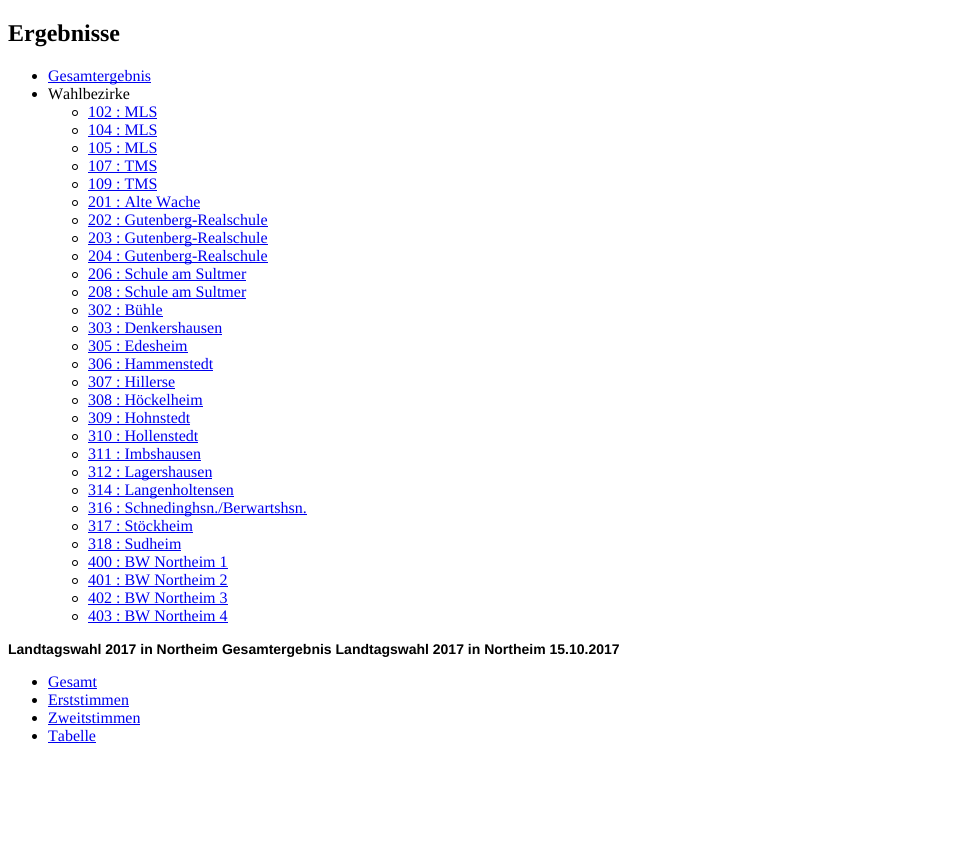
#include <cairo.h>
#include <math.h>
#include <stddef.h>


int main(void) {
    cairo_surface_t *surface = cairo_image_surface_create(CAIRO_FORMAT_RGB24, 980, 854);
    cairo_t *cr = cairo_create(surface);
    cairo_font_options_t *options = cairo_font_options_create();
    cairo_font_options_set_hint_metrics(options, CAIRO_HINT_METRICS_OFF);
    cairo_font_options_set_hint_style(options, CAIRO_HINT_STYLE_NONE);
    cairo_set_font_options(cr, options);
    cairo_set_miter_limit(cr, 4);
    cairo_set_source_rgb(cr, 1, 1, 1);
    cairo_paint(cr);
    cairo_select_font_face(cr, "Liberation Serif", CAIRO_FONT_SLANT_NORMAL, CAIRO_FONT_WEIGHT_BOLD);
    cairo_set_font_size(cr, 24);
    cairo_set_source_rgb(cr, 0, 0, 0);
    cairo_move_to(cr, 8, 41);
    cairo_show_text(cr, "Ergebnisse");
    cairo_new_path(cr);
    cairo_arc(cr, 34.5, 76.5, 2.5, 0, 2 * M_PI);
    cairo_fill(cr);
    cairo_set_source_rgb(cr, 0, 0, 0.933);
    cairo_rectangle(cr, 48, 82, 103, 1);
    cairo_fill(cr);
    cairo_select_font_face(cr, "Liberation Serif", CAIRO_FONT_SLANT_NORMAL, CAIRO_FONT_WEIGHT_NORMAL);
    cairo_set_font_size(cr, 16);
    cairo_move_to(cr, 48, 81);
    cairo_show_text(cr, "Gesamtergebnis");
    cairo_set_source_rgb(cr, 0, 0, 0);
    cairo_new_path(cr);
    cairo_arc(cr, 34.5, 94.5, 2.5, 0, 2 * M_PI);
    cairo_fill(cr);
    cairo_move_to(cr, 48, 99);
    cairo_show_text(cr, "Wahlbezirke");
    cairo_new_path(cr);
    cairo_arc(cr, 75, 113, 2.5, 0, 2 * M_PI);
    cairo_set_line_width(cr, 1);
    cairo_stroke(cr);
    cairo_set_source_rgb(cr, 0, 0, 0.933);
    cairo_move_to(cr, 88, 117);
    cairo_show_text(cr, "102 : MLS");
    cairo_rectangle(cr, 88, 118, 69, 1);
    cairo_fill(cr);
    cairo_arc(cr, 75, 131, 2.5, 0, 2 * M_PI);
    cairo_set_source_rgb(cr, 0, 0, 0);
    cairo_stroke(cr);
    cairo_set_source_rgb(cr, 0, 0, 0.933);
    cairo_move_to(cr, 88, 135);
    cairo_show_text(cr, "104 : MLS");
    cairo_rectangle(cr, 88, 136, 69, 1);
    cairo_fill(cr);
    cairo_arc(cr, 75, 149, 2.5, 0, 2 * M_PI);
    cairo_set_source_rgb(cr, 0, 0, 0);
    cairo_stroke(cr);
    cairo_set_source_rgb(cr, 0, 0, 0.933);
    cairo_move_to(cr, 88, 153);
    cairo_show_text(cr, "105 : MLS");
    cairo_rectangle(cr, 88, 154, 69, 1);
    cairo_fill(cr);
    cairo_arc(cr, 75, 167, 2.5, 0, 2 * M_PI);
    cairo_set_source_rgb(cr, 0, 0, 0);
    cairo_stroke(cr);
    cairo_set_source_rgb(cr, 0, 0, 0.933);
    cairo_move_to(cr, 88, 171);
    cairo_show_text(cr, "107 : TMS");
    cairo_rectangle(cr, 88, 172, 69, 1);
    cairo_fill(cr);
    cairo_arc(cr, 75, 185, 2.5, 0, 2 * M_PI);
    cairo_set_source_rgb(cr, 0, 0, 0);
    cairo_stroke(cr);
    cairo_set_source_rgb(cr, 0, 0, 0.933);
    cairo_move_to(cr, 88, 189);
    cairo_show_text(cr, "109 : TMS");
    cairo_rectangle(cr, 88, 190, 69, 1);
    cairo_fill(cr);
    cairo_arc(cr, 75, 203, 2.5, 0, 2 * M_PI);
    cairo_set_source_rgb(cr, 0, 0, 0);
    cairo_stroke(cr);
    cairo_set_source_rgb(cr, 0, 0, 0.933);
    cairo_move_to(cr, 88, 207);
    cairo_show_text(cr, "201 : Alte Wache");
    cairo_rectangle(cr, 88, 208, 112, 1);
    cairo_fill(cr);
    cairo_arc(cr, 75, 221, 2.5, 0, 2 * M_PI);
    cairo_set_source_rgb(cr, 0, 0, 0);
    cairo_stroke(cr);
    cairo_set_source_rgb(cr, 0, 0, 0.933);
    cairo_rectangle(cr, 88, 226, 180, 1);
    cairo_fill(cr);
    cairo_move_to(cr, 88, 225);
    cairo_show_text(cr, "202 : Gutenberg-Realschule");
    cairo_new_path(cr);
    cairo_arc(cr, 75, 239, 2.5, 0, 2 * M_PI);
    cairo_set_source_rgb(cr, 0, 0, 0);
    cairo_stroke(cr);
    cairo_set_source_rgb(cr, 0, 0, 0.933);
    cairo_rectangle(cr, 88, 244, 180, 1);
    cairo_fill(cr);
    cairo_move_to(cr, 88, 243);
    cairo_show_text(cr, "203 : Gutenberg-Realschule");
    cairo_new_path(cr);
    cairo_arc(cr, 75, 257, 2.5, 0, 2 * M_PI);
    cairo_set_source_rgb(cr, 0, 0, 0);
    cairo_stroke(cr);
    cairo_set_source_rgb(cr, 0, 0, 0.933);
    cairo_rectangle(cr, 88, 262, 180, 1);
    cairo_fill(cr);
    cairo_move_to(cr, 88, 261);
    cairo_show_text(cr, "204 : Gutenberg-Realschule");
    cairo_new_path(cr);
    cairo_arc(cr, 75, 275, 2.5, 0, 2 * M_PI);
    cairo_set_source_rgb(cr, 0, 0, 0);
    cairo_stroke(cr);
    cairo_set_source_rgb(cr, 0, 0, 0.933);
    cairo_move_to(cr, 88, 279);
    cairo_show_text(cr, "206 : Schule am Sultmer");
    cairo_rectangle(cr, 88, 280, 158, 1);
    cairo_fill(cr);
    cairo_arc(cr, 75, 293, 2.5, 0, 2 * M_PI);
    cairo_set_source_rgb(cr, 0, 0, 0);
    cairo_stroke(cr);
    cairo_set_source_rgb(cr, 0, 0, 0.933);
    cairo_move_to(cr, 88, 297);
    cairo_show_text(cr, "208 : Schule am Sultmer");
    cairo_rectangle(cr, 88, 298, 158, 1);
    cairo_fill(cr);
    cairo_arc(cr, 75, 311, 2.5, 0, 2 * M_PI);
    cairo_set_source_rgb(cr, 0, 0, 0);
    cairo_stroke(cr);
    cairo_set_source_rgb(cr, 0, 0, 0.933);
    cairo_move_to(cr, 88, 315);
    cairo_show_text(cr, "302 : Bühle");
    cairo_rectangle(cr, 88, 316, 75, 1);
    cairo_fill(cr);
    cairo_arc(cr, 75, 329, 2.5, 0, 2 * M_PI);
    cairo_set_source_rgb(cr, 0, 0, 0);
    cairo_stroke(cr);
    cairo_set_source_rgb(cr, 0, 0, 0.933);
    cairo_move_to(cr, 88, 333);
    cairo_show_text(cr, "303 : Denkershausen");
    cairo_rectangle(cr, 88, 334, 134, 1);
    cairo_fill(cr);
    cairo_arc(cr, 75, 347, 2.5, 0, 2 * M_PI);
    cairo_set_source_rgb(cr, 0, 0, 0);
    cairo_stroke(cr);
    cairo_set_source_rgb(cr, 0, 0, 0.933);
    cairo_move_to(cr, 88, 351);
    cairo_show_text(cr, "305 : Edesheim");
    cairo_rectangle(cr, 88, 352, 100, 1);
    cairo_fill(cr);
    cairo_arc(cr, 75, 365, 2.5, 0, 2 * M_PI);
    cairo_set_source_rgb(cr, 0, 0, 0);
    cairo_stroke(cr);
    cairo_set_source_rgb(cr, 0, 0, 0.933);
    cairo_move_to(cr, 88, 369);
    cairo_show_text(cr, "306 : Hammenstedt");
    cairo_rectangle(cr, 88, 370, 125, 1);
    cairo_fill(cr);
    cairo_arc(cr, 75, 383, 2.5, 0, 2 * M_PI);
    cairo_set_source_rgb(cr, 0, 0, 0);
    cairo_stroke(cr);
    cairo_set_source_rgb(cr, 0, 0, 0.933);
    cairo_move_to(cr, 88, 387);
    cairo_show_text(cr, "307 : Hillerse");
    cairo_rectangle(cr, 88, 388, 87, 1);
    cairo_fill(cr);
    cairo_arc(cr, 75, 401, 2.5, 0, 2 * M_PI);
    cairo_set_source_rgb(cr, 0, 0, 0);
    cairo_stroke(cr);
    cairo_set_source_rgb(cr, 0, 0, 0.933);
    cairo_move_to(cr, 88, 405);
    cairo_show_text(cr, "308 : Höckelheim");
    cairo_rectangle(cr, 88, 406, 115, 1);
    cairo_fill(cr);
    cairo_arc(cr, 75, 419, 2.5, 0, 2 * M_PI);
    cairo_set_source_rgb(cr, 0, 0, 0);
    cairo_stroke(cr);
    cairo_set_source_rgb(cr, 0, 0, 0.933);
    cairo_move_to(cr, 88, 423);
    cairo_show_text(cr, "309 : Hohnstedt");
    cairo_rectangle(cr, 88, 424, 102, 1);
    cairo_fill(cr);
    cairo_arc(cr, 75, 437, 2.5, 0, 2 * M_PI);
    cairo_set_source_rgb(cr, 0, 0, 0);
    cairo_stroke(cr);
    cairo_set_source_rgb(cr, 0, 0, 0.933);
    cairo_move_to(cr, 88, 441);
    cairo_show_text(cr, "310 : Hollenstedt");
    cairo_rectangle(cr, 88, 442, 110, 1);
    cairo_fill(cr);
    cairo_arc(cr, 75, 455, 2.5, 0, 2 * M_PI);
    cairo_set_source_rgb(cr, 0, 0, 0);
    cairo_stroke(cr);
    cairo_set_source_rgb(cr, 0, 0, 0.933);
    cairo_move_to(cr, 88, 459);
    cairo_show_text(cr, "311 : Imbshausen");
    cairo_rectangle(cr, 88, 460, 113, 1);
    cairo_fill(cr);
    cairo_arc(cr, 75, 473, 2.5, 0, 2 * M_PI);
    cairo_set_source_rgb(cr, 0, 0, 0);
    cairo_stroke(cr);
    cairo_set_source_rgb(cr, 0, 0, 0.933);
    cairo_rectangle(cr, 88, 478, 124, 1);
    cairo_fill(cr);
    cairo_move_to(cr, 88, 477);
    cairo_show_text(cr, "312 : Lagershausen");
    cairo_new_path(cr);
    cairo_arc(cr, 75, 491, 2.5, 0, 2 * M_PI);
    cairo_set_source_rgb(cr, 0, 0, 0);
    cairo_stroke(cr);
    cairo_set_source_rgb(cr, 0, 0, 0.933);
    cairo_rectangle(cr, 88, 496, 146, 1);
    cairo_fill(cr);
    cairo_move_to(cr, 88, 495);
    cairo_show_text(cr, "314 : Langenholtensen");
    cairo_new_path(cr);
    cairo_arc(cr, 75, 509, 2.5, 0, 2 * M_PI);
    cairo_set_source_rgb(cr, 0, 0, 0);
    cairo_stroke(cr);
    cairo_set_source_rgb(cr, 0, 0, 0.933);
    cairo_rectangle(cr, 88, 514, 219, 1);
    cairo_fill(cr);
    cairo_move_to(cr, 88, 513);
    cairo_show_text(cr, "316 : Schnedinghsn./Berwartshsn.");
    cairo_new_path(cr);
    cairo_arc(cr, 75, 527, 2.5, 0, 2 * M_PI);
    cairo_set_source_rgb(cr, 0, 0, 0);
    cairo_stroke(cr);
    cairo_set_source_rgb(cr, 0, 0, 0.933);
    cairo_move_to(cr, 88, 531);
    cairo_show_text(cr, "317 : Stöckheim");
    cairo_rectangle(cr, 88, 532, 105, 1);
    cairo_fill(cr);
    cairo_arc(cr, 75, 545, 2.5, 0, 2 * M_PI);
    cairo_set_source_rgb(cr, 0, 0, 0);
    cairo_stroke(cr);
    cairo_set_source_rgb(cr, 0, 0, 0.933);
    cairo_move_to(cr, 88, 549);
    cairo_show_text(cr, "318 : Sudheim");
    cairo_rectangle(cr, 88, 550, 93, 1);
    cairo_fill(cr);
    cairo_arc(cr, 75, 563, 2.5, 0, 2 * M_PI);
    cairo_set_source_rgb(cr, 0, 0, 0);
    cairo_stroke(cr);
    cairo_set_source_rgb(cr, 0, 0, 0.933);
    cairo_move_to(cr, 88, 567);
    cairo_show_text(cr, "400 : BW Northeim 1");
    cairo_rectangle(cr, 88, 568, 140, 1);
    cairo_fill(cr);
    cairo_arc(cr, 75, 581, 2.5, 0, 2 * M_PI);
    cairo_set_source_rgb(cr, 0, 0, 0);
    cairo_stroke(cr);
    cairo_set_source_rgb(cr, 0, 0, 0.933);
    cairo_move_to(cr, 88, 585);
    cairo_show_text(cr, "401 : BW Northeim 2");
    cairo_rectangle(cr, 88, 586, 140, 1);
    cairo_fill(cr);
    cairo_arc(cr, 75, 599, 2.5, 0, 2 * M_PI);
    cairo_set_source_rgb(cr, 0, 0, 0);
    cairo_stroke(cr);
    cairo_set_source_rgb(cr, 0, 0, 0.933);
    cairo_move_to(cr, 88, 603);
    cairo_show_text(cr, "402 : BW Northeim 3");
    cairo_rectangle(cr, 88, 604, 140, 1);
    cairo_fill(cr);
    cairo_arc(cr, 75, 617, 2.5, 0, 2 * M_PI);
    cairo_set_source_rgb(cr, 0, 0, 0);
    cairo_stroke(cr);
    cairo_set_source_rgb(cr, 0, 0, 0.933);
    cairo_move_to(cr, 88, 621);
    cairo_show_text(cr, "403 : BW Northeim 4");
    cairo_rectangle(cr, 88, 622, 140, 1);
    cairo_fill(cr);
    cairo_select_font_face(cr, "Liberation Sans", CAIRO_FONT_SLANT_NORMAL, CAIRO_FONT_WEIGHT_BOLD);
    cairo_set_font_size(cr, 14);
    cairo_set_source_rgb(cr, 0, 0, 0);
    cairo_move_to(cr, 8, 654);
    cairo_show_text(cr, "Landtagswahl 2017 in Northeim Gesamtergebnis Landtagswahl 2017 in Northeim 15.10.2017");
    cairo_new_path(cr);
    cairo_arc(cr, 34.5, 682.5, 2.5, 0, 2 * M_PI);
    cairo_fill(cr);
    cairo_select_font_face(cr, "Liberation Serif", CAIRO_FONT_SLANT_NORMAL, CAIRO_FONT_WEIGHT_NORMAL);
    cairo_set_font_size(cr, 16);
    cairo_set_source_rgb(cr, 0, 0, 0.933);
    cairo_move_to(cr, 48, 687);
    cairo_show_text(cr, "Gesamt");
    cairo_rectangle(cr, 48, 688, 49, 1);
    cairo_fill(cr);
    cairo_set_source_rgb(cr, 0, 0, 0);
    cairo_arc(cr, 34.5, 700.5, 2.5, 0, 2 * M_PI);
    cairo_fill(cr);
    cairo_set_source_rgb(cr, 0, 0, 0.933);
    cairo_move_to(cr, 48, 705);
    cairo_show_text(cr, "Erststimmen");
    cairo_rectangle(cr, 48, 706, 81, 1);
    cairo_fill(cr);
    cairo_set_source_rgb(cr, 0, 0, 0);
    cairo_arc(cr, 34.5, 718.5, 2.5, 0, 2 * M_PI);
    cairo_fill(cr);
    cairo_set_source_rgb(cr, 0, 0, 0.933);
    cairo_move_to(cr, 48, 723);
    cairo_show_text(cr, "Zweitstimmen");
    cairo_rectangle(cr, 48, 724, 92, 1);
    cairo_fill(cr);
    cairo_set_source_rgb(cr, 0, 0, 0);
    cairo_arc(cr, 34.5, 736.5, 2.5, 0, 2 * M_PI);
    cairo_fill(cr);
    cairo_set_source_rgb(cr, 0, 0, 0.933);
    cairo_move_to(cr, 48, 741);
    cairo_show_text(cr, "Tabelle");
    cairo_rectangle(cr, 48, 742, 48, 1);
    cairo_fill(cr);
    cairo_surface_write_to_png(surface, "page.png");
    cairo_font_options_destroy(options);
    cairo_destroy(cr);
    cairo_surface_destroy(surface);
    return 0;
}
